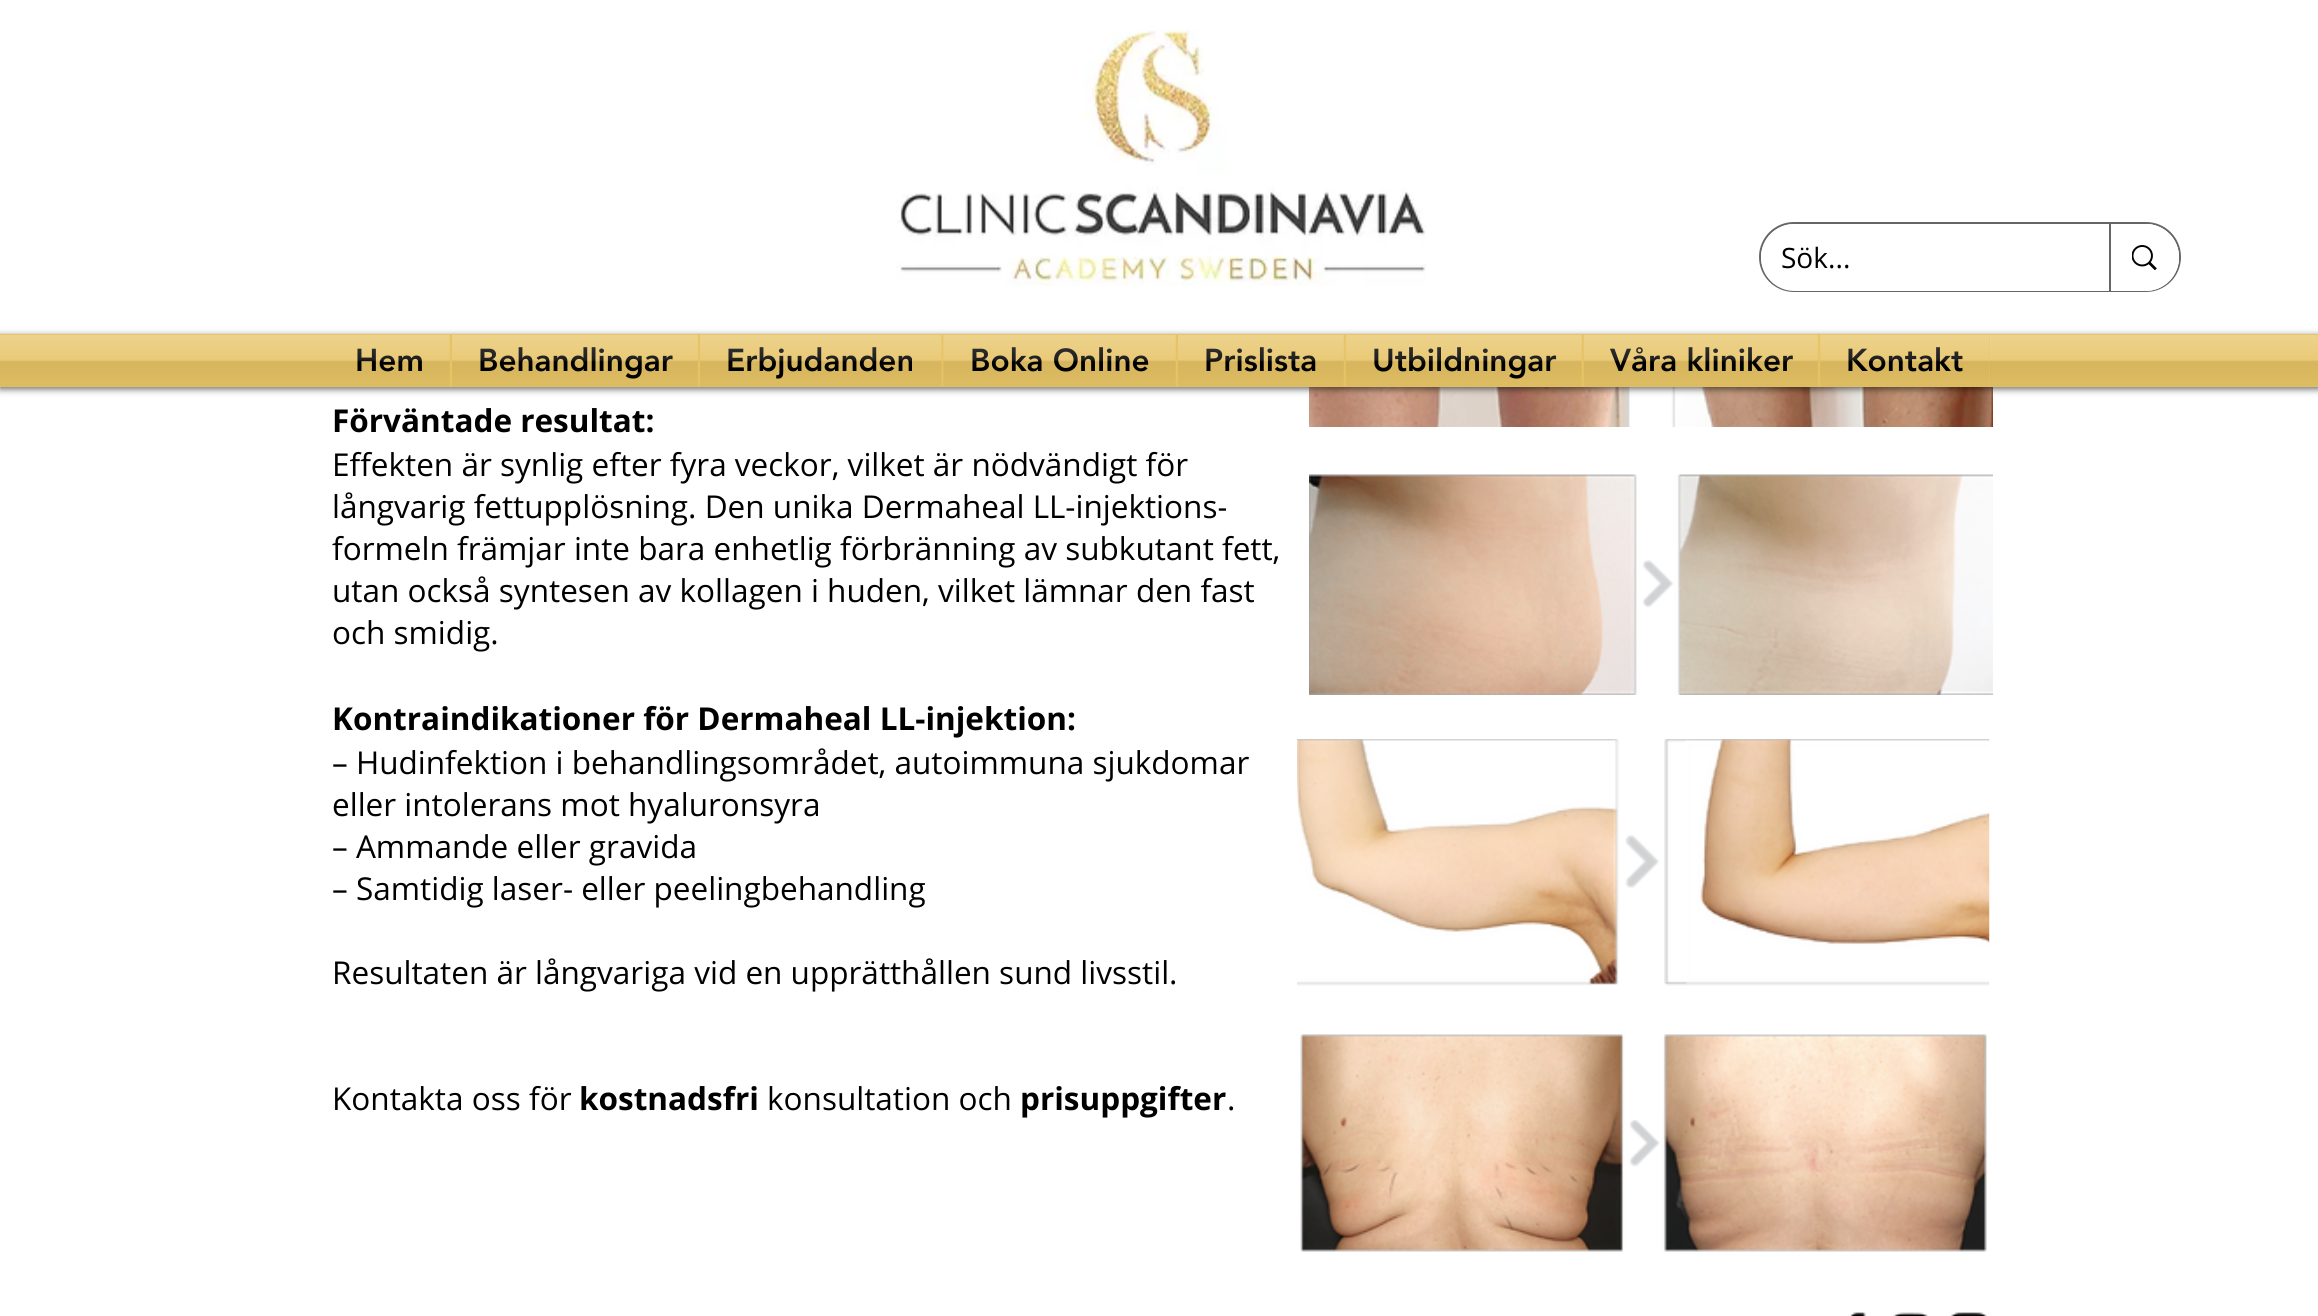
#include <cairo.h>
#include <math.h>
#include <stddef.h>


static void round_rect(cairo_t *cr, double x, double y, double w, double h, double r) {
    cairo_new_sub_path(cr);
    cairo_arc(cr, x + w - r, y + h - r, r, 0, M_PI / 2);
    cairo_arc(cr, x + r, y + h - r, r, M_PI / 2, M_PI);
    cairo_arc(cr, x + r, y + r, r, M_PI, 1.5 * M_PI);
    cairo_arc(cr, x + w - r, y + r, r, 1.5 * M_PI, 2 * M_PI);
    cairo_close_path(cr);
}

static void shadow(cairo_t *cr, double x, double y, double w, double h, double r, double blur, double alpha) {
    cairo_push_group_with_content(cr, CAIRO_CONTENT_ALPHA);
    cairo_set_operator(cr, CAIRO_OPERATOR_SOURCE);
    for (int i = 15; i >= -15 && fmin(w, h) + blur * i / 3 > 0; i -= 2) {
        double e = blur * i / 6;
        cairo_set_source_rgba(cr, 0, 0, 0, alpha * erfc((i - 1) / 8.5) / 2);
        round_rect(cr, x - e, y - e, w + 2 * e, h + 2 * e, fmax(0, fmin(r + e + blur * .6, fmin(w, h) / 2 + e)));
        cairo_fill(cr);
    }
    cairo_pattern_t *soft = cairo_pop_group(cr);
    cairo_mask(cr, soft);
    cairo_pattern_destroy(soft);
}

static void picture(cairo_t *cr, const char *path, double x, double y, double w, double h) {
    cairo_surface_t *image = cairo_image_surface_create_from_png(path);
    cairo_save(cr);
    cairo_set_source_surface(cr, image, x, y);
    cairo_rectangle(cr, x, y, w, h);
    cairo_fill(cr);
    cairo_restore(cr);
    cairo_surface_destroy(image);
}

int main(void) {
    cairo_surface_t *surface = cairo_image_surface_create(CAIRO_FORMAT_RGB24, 2318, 1316);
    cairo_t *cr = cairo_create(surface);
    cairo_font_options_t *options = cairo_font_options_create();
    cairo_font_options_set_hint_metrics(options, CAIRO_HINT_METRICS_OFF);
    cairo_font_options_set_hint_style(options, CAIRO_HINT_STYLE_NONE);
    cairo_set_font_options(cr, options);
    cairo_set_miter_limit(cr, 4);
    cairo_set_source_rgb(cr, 1, 1, 1);
    cairo_paint(cr);
    picture(cr, "img1.png", 896, 29, 530, 257);
    round_rect(cr, 1760, 223, 420, 68, 34);
    cairo_set_source_rgb(cr, 0.4, 0.4, 0.4);
    cairo_stroke(cr);
    cairo_set_source_rgb(cr, 1, 1, 1);
    round_rect(cr, 1761, 224, 418, 67, 33.5);
    cairo_fill(cr);
    cairo_select_font_face(cr, "Open Sans", CAIRO_FONT_SLANT_NORMAL, CAIRO_FONT_WEIGHT_NORMAL);
    cairo_set_font_size(cr, 28);
    cairo_set_source_rgb(cr, 0, 0, 0);
    cairo_move_to(cr, 1781, 268);
    cairo_show_text(cr, "Sök...");
    cairo_set_source_rgb(cr, 1, 1, 1);
    cairo_new_path(cr);
    cairo_move_to(cr, 2109, 224);
    cairo_line_to(cr, 2145.5, 224);
    cairo_curve_to(cr, 2164, 224, 2179, 239, 2179, 257.5);
    cairo_curve_to(cr, 2179, 276, 2164, 291, 2145.5, 291);
    cairo_line_to(cr, 2109, 291);
    cairo_close_path(cr);
    cairo_fill(cr);
    cairo_set_source_rgb(cr, 0.4, 0.4, 0.4);
    cairo_rectangle(cr, 2109, 224, 2, 67);
    cairo_fill(cr);
    picture(cr, "img2.png", 2132, 245, 25, 25);
    picture(cr, "img12.png", 1309, 387, 684, 40);
    cairo_set_source_rgb(cr, 0, 0, 0);
    shadow(cr, 0, 336, 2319, 53, 0, 3.5, 0.6);
    cairo_set_source_rgb(cr, 0.902, 0.765, 0.396);
    cairo_rectangle(cr, 0, 334, 2318, 53);
    cairo_fill(cr);
    picture(cr, "img3.png", 0, 335, 2318, 52);
    cairo_rectangle(cr, 329, 335, 1661, 52);
    cairo_fill(cr);
    cairo_select_font_face(cr, "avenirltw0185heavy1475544 Black", CAIRO_FONT_SLANT_NORMAL, CAIRO_FONT_WEIGHT_NORMAL);
    cairo_set_font_size(cr, 31.5);
    cairo_set_source_rgb(cr, 0, 0, 0);
    cairo_move_to(cr, 355, 371);
    cairo_show_text(cr, "Hem");
    picture(cr, "img4.png", 329, 335, 121, 52);
    cairo_move_to(cr, 478, 371);
    cairo_show_text(cr, "Behandlingar");
    picture(cr, "img5.png", 452, 335, 246, 52);
    cairo_move_to(cr, 726, 371);
    cairo_show_text(cr, "Erbjudanden");
    picture(cr, "img6.png", 700, 335, 242, 52);
    cairo_move_to(cr, 970, 371);
    cairo_show_text(cr, "Boka Online");
    picture(cr, "img7.png", 942, 335, 234, 52);
    cairo_move_to(cr, 1204, 371);
    cairo_show_text(cr, "Prislista");
    picture(cr, "img8.png", 1178, 335, 166, 52);
    cairo_move_to(cr, 1372, 371);
    cairo_show_text(cr, "Utbildningar");
    picture(cr, "img9.png", 1345, 335, 237, 52);
    cairo_move_to(cr, 1610, 371);
    cairo_show_text(cr, "Våra kliniker");
    picture(cr, "img10.png", 1583, 335, 235, 52);
    cairo_move_to(cr, 1846, 371);
    cairo_show_text(cr, "Kontakt");
    picture(cr, "img11.png", 1819, 335, 172, 52);
    cairo_select_font_face(cr, "Open Sans", CAIRO_FONT_SLANT_NORMAL, CAIRO_FONT_WEIGHT_BOLD);
    cairo_move_to(cr, 332, 432);
    cairo_show_text(cr, "Förväntade resultat:");
    cairo_select_font_face(cr, "Open Sans", CAIRO_FONT_SLANT_NORMAL, CAIRO_FONT_WEIGHT_NORMAL);
    cairo_move_to(cr, 332, 476);
    cairo_show_text(cr, "Effekten är synlig efter fyra veckor, vilket är nödvändigt för");
    cairo_move_to(cr, 332, 518);
    cairo_show_text(cr, "långvarig fettupplösning. Den unika Dermaheal LL-injektions-");
    cairo_move_to(cr, 332, 560);
    cairo_show_text(cr, "formeln främjar inte bara enhetlig förbränning av subkutant fett,");
    cairo_move_to(cr, 332, 602);
    cairo_show_text(cr, "utan också syntesen av kollagen i huden, vilket lämnar den fast");
    cairo_move_to(cr, 332, 644);
    cairo_show_text(cr, "och smidig.");
    cairo_select_font_face(cr, "Open Sans", CAIRO_FONT_SLANT_NORMAL, CAIRO_FONT_WEIGHT_BOLD);
    cairo_move_to(cr, 332, 730);
    cairo_show_text(cr, "Kontraindikationer för Dermaheal LL-injektion:");
    cairo_select_font_face(cr, "Open Sans", CAIRO_FONT_SLANT_NORMAL, CAIRO_FONT_WEIGHT_NORMAL);
    cairo_move_to(cr, 332, 774);
    cairo_show_text(cr, "– Hudinfektion i behandlingsområdet, autoimmuna sjukdomar");
    cairo_move_to(cr, 332, 816);
    cairo_show_text(cr, "eller intolerans mot hyaluronsyra");
    cairo_move_to(cr, 332, 858);
    cairo_show_text(cr, "– Ammande eller gravida");
    cairo_move_to(cr, 332, 900);
    cairo_show_text(cr, "– Samtidig laser- eller peelingbehandling");
    cairo_move_to(cr, 332, 984);
    cairo_show_text(cr, "Resultaten är långvariga vid en upprätthållen sund livsstil.");
    cairo_move_to(cr, 332, 1110);
    cairo_show_text(cr, "Kontakta oss för");
    cairo_select_font_face(cr, "Open Sans", CAIRO_FONT_SLANT_NORMAL, CAIRO_FONT_WEIGHT_BOLD);
    cairo_move_to(cr, 579, 1110);
    cairo_show_text(cr, "kostnadsfri");
    cairo_select_font_face(cr, "Open Sans", CAIRO_FONT_SLANT_NORMAL, CAIRO_FONT_WEIGHT_NORMAL);
    cairo_move_to(cr, 767, 1110);
    cairo_show_text(cr, "konsultation och");
    cairo_select_font_face(cr, "Open Sans", CAIRO_FONT_SLANT_NORMAL, CAIRO_FONT_WEIGHT_BOLD);
    cairo_move_to(cr, 1020, 1110);
    cairo_show_text(cr, "prisuppgifter");
    cairo_select_font_face(cr, "Open Sans", CAIRO_FONT_SLANT_NORMAL, CAIRO_FONT_WEIGHT_NORMAL);
    cairo_move_to(cr, 1227, 1110);
    cairo_show_text(cr, ".");
    picture(cr, "img13.png", 1309, 474, 684, 221);
    picture(cr, "img14.png", 1297, 739, 693, 247);
    picture(cr, "img15.png", 1300, 1034, 687, 218);
    picture(cr, "img16.png", 1849, 1312, 17, 4);
    picture(cr, "img17.png", 1893, 1312, 35, 4);
    picture(cr, "img18.png", 1950, 1312, 37, 4);
    cairo_surface_write_to_png(surface, "page.png");
    cairo_font_options_destroy(options);
    cairo_destroy(cr);
    cairo_surface_destroy(surface);
    return 0;
}
